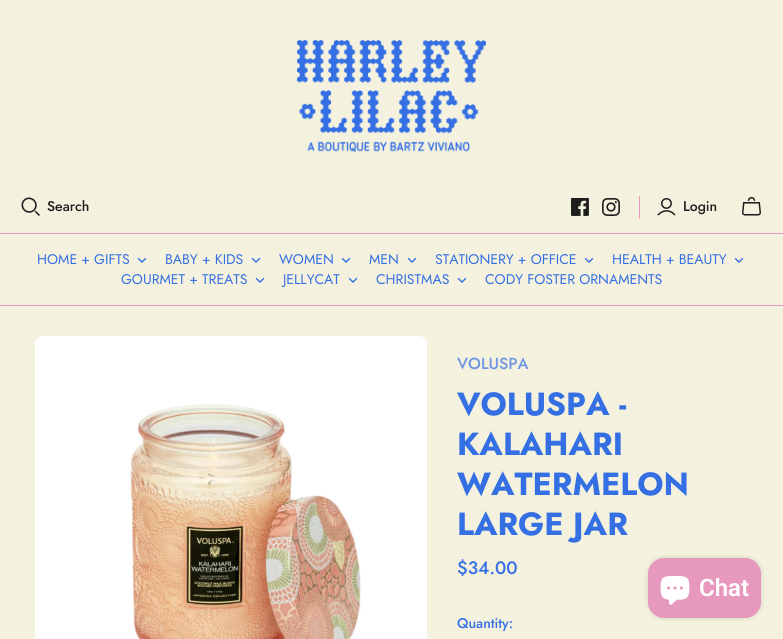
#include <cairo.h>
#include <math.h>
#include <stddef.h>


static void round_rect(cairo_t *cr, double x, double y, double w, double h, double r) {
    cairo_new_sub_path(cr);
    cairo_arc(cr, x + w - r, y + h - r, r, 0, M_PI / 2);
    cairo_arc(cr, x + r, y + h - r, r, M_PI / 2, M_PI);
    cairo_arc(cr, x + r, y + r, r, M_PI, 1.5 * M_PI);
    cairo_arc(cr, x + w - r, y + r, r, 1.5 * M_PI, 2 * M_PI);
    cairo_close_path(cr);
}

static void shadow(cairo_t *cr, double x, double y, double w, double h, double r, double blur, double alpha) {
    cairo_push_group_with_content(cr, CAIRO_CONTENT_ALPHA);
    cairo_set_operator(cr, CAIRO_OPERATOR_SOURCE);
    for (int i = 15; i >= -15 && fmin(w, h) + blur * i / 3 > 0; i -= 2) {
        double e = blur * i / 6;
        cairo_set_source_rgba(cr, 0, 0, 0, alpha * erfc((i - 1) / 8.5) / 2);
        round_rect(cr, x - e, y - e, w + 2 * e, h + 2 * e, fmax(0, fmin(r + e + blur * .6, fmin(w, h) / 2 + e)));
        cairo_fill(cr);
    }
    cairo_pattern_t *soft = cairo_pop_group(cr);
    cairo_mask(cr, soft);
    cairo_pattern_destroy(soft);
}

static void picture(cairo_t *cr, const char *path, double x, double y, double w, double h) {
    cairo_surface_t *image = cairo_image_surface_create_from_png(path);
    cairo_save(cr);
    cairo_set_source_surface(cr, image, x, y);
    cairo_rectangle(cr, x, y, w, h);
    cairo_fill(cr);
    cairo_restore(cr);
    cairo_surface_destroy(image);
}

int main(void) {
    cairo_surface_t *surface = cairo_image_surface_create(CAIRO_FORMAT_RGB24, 783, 639);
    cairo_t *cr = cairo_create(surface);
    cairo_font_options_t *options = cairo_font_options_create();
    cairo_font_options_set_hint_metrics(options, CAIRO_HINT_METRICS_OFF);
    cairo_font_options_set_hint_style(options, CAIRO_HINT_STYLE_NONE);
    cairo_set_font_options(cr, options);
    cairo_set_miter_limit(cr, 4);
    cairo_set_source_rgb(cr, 0.957, 0.949, 0.871);
    cairo_paint(cr);
    picture(cr, "img1.png", 297, 40, 189, 113);
    picture(cr, "img2.png", 21, 197, 19, 19);
    cairo_select_font_face(cr, "Jost Medium", CAIRO_FONT_SLANT_NORMAL, CAIRO_FONT_WEIGHT_NORMAL);
    cairo_set_font_size(cr, 14);
    cairo_set_source_rgb(cr, 0.118, 0.118, 0.118);
    cairo_move_to(cr, 47, 211);
    cairo_show_text(cr, "Search");
    picture(cr, "img3.png", 571, 198, 18, 18);
    picture(cr, "img4.png", 602, 198, 18, 18);
    cairo_set_source_rgb(cr, 0.902, 0.6, 0.741);
    cairo_rectangle(cr, 639, 196, 1, 23);
    cairo_fill(cr);
    picture(cr, "img5.png", 657, 198, 19, 18);
    cairo_set_source_rgb(cr, 0.118, 0.118, 0.118);
    cairo_move_to(cr, 683, 211);
    cairo_show_text(cr, "Login");
    picture(cr, "img6.png", 742, 197, 19, 19);
    cairo_set_source_rgb(cr, 0.902, 0.6, 0.741);
    cairo_rectangle(cr, 0, 233, 783, 1);
    cairo_fill(cr);
    cairo_rectangle(cr, 0, 305, 783, 1);
    cairo_fill(cr);
    cairo_select_font_face(cr, "Jost", CAIRO_FONT_SLANT_NORMAL, CAIRO_FONT_WEIGHT_NORMAL);
    cairo_set_source_rgb(cr, 0.208, 0.435, 0.894);
    cairo_move_to(cr, 37, 264);
    cairo_show_text(cr, "HOME + GIFTS");
    picture(cr, "img7.png", 137, 257, 10, 6);
    cairo_move_to(cr, 165, 264);
    cairo_show_text(cr, "BABY + KIDS");
    picture(cr, "img7.png", 251, 257, 10, 6);
    cairo_move_to(cr, 279, 264);
    cairo_show_text(cr, "WOMEN");
    picture(cr, "img7.png", 341, 257, 10, 6);
    cairo_move_to(cr, 369, 264);
    cairo_show_text(cr, "MEN");
    picture(cr, "img7.png", 407, 257, 10, 6);
    cairo_move_to(cr, 435, 264);
    cairo_show_text(cr, "STATIONERY + OFFICE");
    picture(cr, "img7.png", 584, 257, 10, 6);
    cairo_move_to(cr, 612, 264);
    cairo_show_text(cr, "HEALTH + BEAUTY");
    picture(cr, "img7.png", 734, 257, 10, 6);
    cairo_move_to(cr, 121, 284);
    cairo_show_text(cr, "GOURMET + TREATS");
    picture(cr, "img7.png", 255, 277, 10, 6);
    cairo_move_to(cr, 283, 284);
    cairo_show_text(cr, "JELLYCAT");
    picture(cr, "img7.png", 348, 277, 10, 6);
    cairo_move_to(cr, 376, 284);
    cairo_show_text(cr, "CHRISTMAS");
    picture(cr, "img7.png", 457, 277, 10, 6);
    cairo_move_to(cr, 485, 284);
    cairo_show_text(cr, "CODY FOSTER ORNAMENTS");
    picture(cr, "img8.png", 35, 336, 392, 303);
    cairo_select_font_face(cr, "Jost Medium", CAIRO_FONT_SLANT_NORMAL, CAIRO_FONT_WEIGHT_NORMAL);
    cairo_set_font_size(cr, 16);
    cairo_set_source_rgb(cr, 0.431, 0.588, 0.886);
    cairo_move_to(cr, 457, 369);
    cairo_show_text(cr, "VOLUSPA");
    cairo_select_font_face(cr, "Jost", CAIRO_FONT_SLANT_NORMAL, CAIRO_FONT_WEIGHT_BOLD);
    cairo_set_font_size(cr, 32);
    cairo_set_source_rgb(cr, 0.208, 0.435, 0.894);
    cairo_move_to(cr, 457, 415);
    cairo_show_text(cr, "VOLUSPA -");
    cairo_move_to(cr, 457, 455);
    cairo_show_text(cr, "KALAHARI");
    cairo_move_to(cr, 457, 495);
    cairo_show_text(cr, "WATERMELON");
    cairo_move_to(cr, 457, 535);
    cairo_show_text(cr, "LARGE JAR");
    cairo_select_font_face(cr, "Jost Medium", CAIRO_FONT_SLANT_NORMAL, CAIRO_FONT_WEIGHT_NORMAL);
    cairo_set_font_size(cr, 18);
    cairo_move_to(cr, 457, 574);
    cairo_show_text(cr, "$34.00");
    cairo_set_font_size(cr, 14);
    cairo_move_to(cr, 457, 628);
    cairo_show_text(cr, "Quantity:");
    cairo_set_source_rgb(cr, 0, 0, 0);
    shadow(cr, 648, 558, 113, 60, 16, 2.5, 0.15);
    cairo_set_source_rgb(cr, 0.902, 0.6, 0.741);
    round_rect(cr, 648, 558, 113, 60, 16);
    cairo_fill(cr);
    picture(cr, "img9.png", 660, 576, 30, 29);
    cairo_select_font_face(cr, "Roboto SemiBold", CAIRO_FONT_SLANT_NORMAL, CAIRO_FONT_WEIGHT_NORMAL);
    cairo_set_font_size(cr, 24);
    cairo_set_source_rgb(cr, 1, 1, 1);
    cairo_move_to(cr, 699, 596);
    cairo_show_text(cr, "Chat");
    cairo_surface_write_to_png(surface, "page.png");
    cairo_font_options_destroy(options);
    cairo_destroy(cr);
    cairo_surface_destroy(surface);
    return 0;
}
